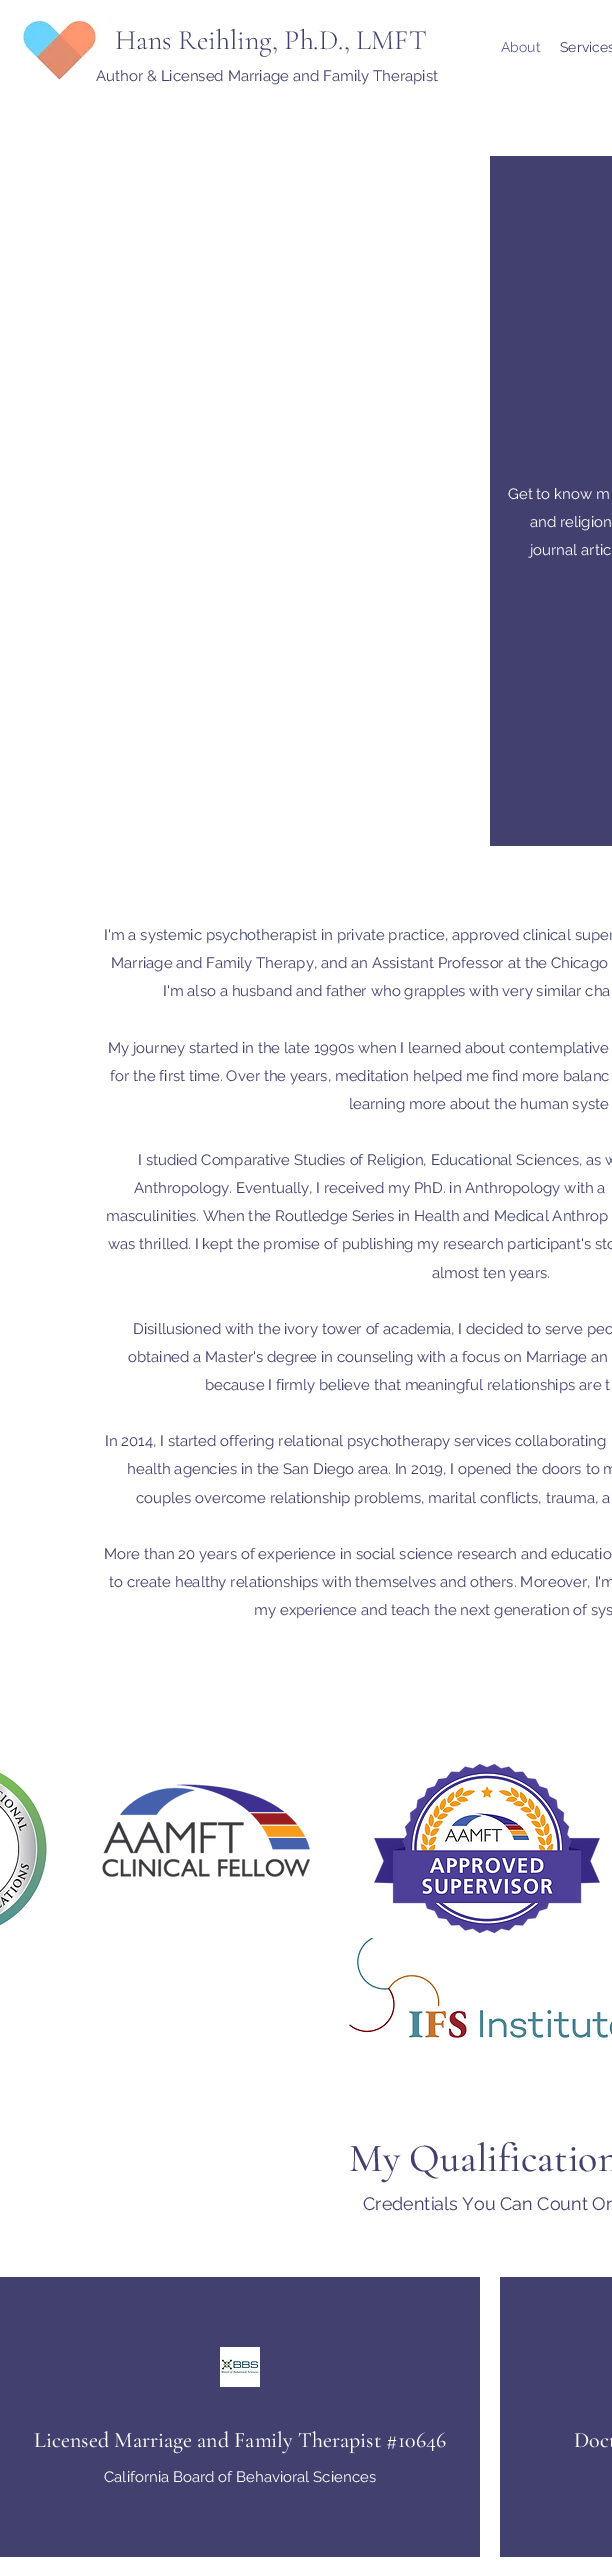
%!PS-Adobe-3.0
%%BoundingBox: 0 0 612 2572
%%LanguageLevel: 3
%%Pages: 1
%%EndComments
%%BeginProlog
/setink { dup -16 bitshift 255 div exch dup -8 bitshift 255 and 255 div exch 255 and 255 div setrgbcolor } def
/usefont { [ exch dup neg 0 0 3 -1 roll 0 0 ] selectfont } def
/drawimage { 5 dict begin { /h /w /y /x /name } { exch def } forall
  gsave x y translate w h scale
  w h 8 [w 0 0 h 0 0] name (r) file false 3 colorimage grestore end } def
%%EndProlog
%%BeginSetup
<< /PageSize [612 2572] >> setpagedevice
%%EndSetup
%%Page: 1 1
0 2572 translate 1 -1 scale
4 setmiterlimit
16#FFFFFF setink
0 0 612 2572 rectfill
(img1.raw) 20 15 80 65 drawimage
/CormorantGaramond-Light 28 usefont
16#42406F setink
115 49 moveto (Hans Reihling, Ph.D., LMFT) show
/Raleway-Regular 14 usefont
16#6360A3 setink
501 52 moveto (About) show
16#42406F setink
560 52 moveto (Services) show
/Raleway-Regular 15 usefont
96 81 moveto (Author & Licensed Marriage and Family Therapist) show
490 156 122 690 rectfill
16#FFFFFF setink
[
    [(Get to know m) 508 499]
    [(and religion) 530 527]
    [(journal artic) 530 555]
] { aload pop moveto show } forall
16#42406F setink
[
    [(I'm a systemic psychotherapist in private practice, approved clinical super) 104 940]
    [(Marriage and Family Therapy, and an Assistant Professor at the Chicago) 111 968]
    [(I'm also a husband and father who grapples with very similar cha) 163 996]
    [(My journey started in the late 1990s when I learned about contemplative) 108 1053]
    [(for the first time. Over the years, meditation helped me find more balanc) 110 1081]
    [(learning more about the human syste) 349 1109]
    [(I studied Comparative Studies of Religion, Educational Sciences, as w) 138 1165]
    [(Anthropology. Eventually, I received my PhD. in Anthropology with a) 134 1193]
    [(masculinities. When the Routledge Series in Health and Medical Anthrop) 106 1221]
    [(was thrilled. I kept the promise of publishing my research participant's sto) 108 1249]
    [(almost ten years.) 432 1278]
    [(Disillusioned with the ivory tower of academia, I decided to serve peo) 133 1334]
    [(obtained a Master's degree in counseling with a focus on Marriage an) 128 1362]
    [(because I firmly believe that meaningful relationships are t) 205 1390]
    [(In 2014, I started offering relational psychotherapy services collaborating) 105 1446]
    [(health agencies in the San Diego area. In 2019, I opened the doors to m) 127 1474]
    [(couples overcome relationship problems, marital conflicts, trauma, a) 136 1503]
    [(More than 20 years of experience in social science research and educatio) 104 1559]
    [(to create healthy relationships with themselves and others. Moreover, I'm) 109 1587]
    [(my experience and teach the next generation of sys) 254 1615]
] { aload pop moveto show } forall
(img2.raw) 0 1772 49 154 drawimage
(img3.raw) 102 1783 208 94 drawimage
(img4.raw) 374 1764 226 170 drawimage
(img5.raw) 349 1938 263 102 drawimage
/CormorantGaramond-Medium 40 usefont
349 2171 moveto (My Qualification) show
/Raleway-Regular 18 usefont
363 2210 moveto (Credentials You Can Count On) show
0 2277 480 280 rectfill
(img6.raw) 220 2347 40 40 drawimage
/CormorantGaramond-Medium 22 usefont
16#FFFFFF setink
34 2447 moveto (Licensed Marriage and Family Therapist #10646) show
/Raleway-Regular 15 usefont
104 2482 moveto (California Board of Behavioral Sciences) show
16#42406F setink
500 2277 112 280 rectfill
/CormorantGaramond-Medium 22 usefont
16#FFFFFF setink
574 2447 moveto (Doct) show
showpage
%%EOF
